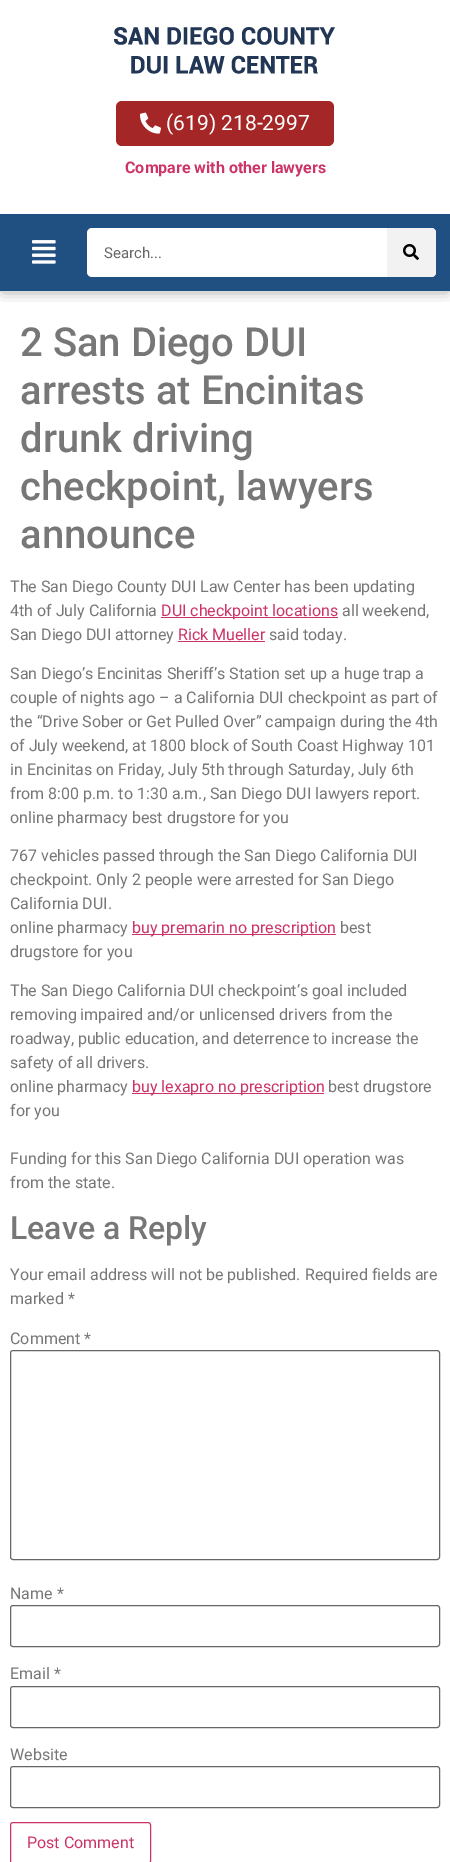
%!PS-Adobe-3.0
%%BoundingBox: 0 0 450 1862
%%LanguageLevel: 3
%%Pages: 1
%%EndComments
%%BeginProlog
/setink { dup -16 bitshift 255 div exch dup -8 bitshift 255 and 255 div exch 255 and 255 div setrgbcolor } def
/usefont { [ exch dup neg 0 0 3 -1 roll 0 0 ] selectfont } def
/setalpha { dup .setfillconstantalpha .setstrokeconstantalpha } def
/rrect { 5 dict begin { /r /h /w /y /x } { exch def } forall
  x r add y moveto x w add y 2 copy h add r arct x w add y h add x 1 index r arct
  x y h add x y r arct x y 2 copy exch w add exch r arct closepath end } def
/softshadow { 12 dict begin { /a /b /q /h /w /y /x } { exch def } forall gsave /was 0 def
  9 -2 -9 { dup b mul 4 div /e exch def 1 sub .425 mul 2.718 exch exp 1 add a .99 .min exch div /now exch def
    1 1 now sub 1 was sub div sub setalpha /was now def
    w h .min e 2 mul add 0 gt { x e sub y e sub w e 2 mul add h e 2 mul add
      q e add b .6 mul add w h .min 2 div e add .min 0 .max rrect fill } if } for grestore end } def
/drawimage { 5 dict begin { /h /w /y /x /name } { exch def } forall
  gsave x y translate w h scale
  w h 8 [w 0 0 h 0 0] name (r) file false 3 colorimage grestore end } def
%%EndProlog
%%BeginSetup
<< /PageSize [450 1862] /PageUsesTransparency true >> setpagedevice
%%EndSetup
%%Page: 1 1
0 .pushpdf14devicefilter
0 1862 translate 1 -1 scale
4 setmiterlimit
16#FFFFFF setink
0 0 450 1862 rectfill
gsave
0 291 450 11 rectclip
16#000000 setink
3 4 444 285 0 7.5 0.5 softshadow
grestore
(img1.raw) 114 27 221 47 drawimage
16#A52626 setink
116 101 218 45 6 rrect fill
(img2.raw) 140 112 21 22 drawimage
/Roboto-Regular 21 usefont
16#FFFFFF setink
166 130 moveto (\(619\) 218-2997) show
/Roboto-Bold 16 usefont
16#CC3366 setink
125 173 moveto (Compare with other lawyers) show
16#1F5081 setink
0 214 450 77 rectfill
(img3.raw) 32 240 24 24 drawimage
16#FFFFFF setink
87 228 349 49 5 rrect fill
/Roboto-Regular 15 usefont
16#666666 setink
104 258 moveto (Search...) show
16#F2F2F2 setink
387 228 moveto 431 228 lineto 434 228 436 230 436 233 curveto 436 272 lineto 436 275 434 277 431 277 curveto 387 277 lineto closepath fill
(img4.raw) 403 244 16 16 drawimage
/Roboto-Medium 40 usefont
16#777777 setink
[
    [(2 San Diego DUI) 20 356]
    [(arrests at Encinitas) 20 404]
    [(drunk driving) 20 452]
    [(checkpoint, lawyers) 20 500]
    [(announce) 20 548]
] { aload pop moveto show } forall
/Roboto-Regular 16 usefont
10 592 moveto (The San Diego County DUI Law Center has been updating) show
10 616 moveto (4th of July California) show
16#CC3366 setink
161 617 177 1 rectfill
161 616 moveto (DUI checkpoint locations) show
16#777777 setink
342 616 moveto (all weekend,) show
10 640 moveto (San Diego DUI attorney) show
16#CC3366 setink
178 640 moveto (Rick Mueller) show
178 641 87 1 rectfill
16#777777 setink
[
    [(said today.) 269 640]
    [(San Diego’s Encinitas Sheriff’s Station set up a huge trap a) 10 679]
    [(couple of nights ago – a California DUI checkpoint as part of) 10 703]
    [(the “Drive Sober or Get Pulled Over” campaign during the 4th) 10 727]
    [(of July weekend, at 1800 block of South Coast Highway 101) 10 751]
    [(in Encinitas on Friday, July 5th through Saturday, July 6th) 10 775]
    [(from 8:00 p.m. to 1:30 a.m., San Diego DUI lawyers report.) 10 799]
    [(online pharmacy best drugstore for you) 10 823]
    [(767 vehicles passed through the San Diego California DUI) 10 861]
    [(checkpoint. Only 2 people were arrested for San Diego) 10 885]
    [(California DUI.) 10 909]
    [(online pharmacy) 10 933]
] { aload pop moveto show } forall
16#CC3366 setink
132 934 204 1 rectfill
132 933 moveto (buy premarin no prescription) show
16#777777 setink
[
    [(best) 340 933]
    [(drugstore for you) 10 957]
    [(The San Diego California DUI checkpoint’s goal included) 10 996]
    [(removing impaired and/or unlicensed drivers from the) 10 1020]
    [(roadway, public education, and deterrence to increase the) 10 1044]
    [(safety of all drivers.) 10 1068]
    [(online pharmacy) 10 1092]
] { aload pop moveto show } forall
16#CC3366 setink
132 1093 192 1 rectfill
132 1092 moveto (buy lexapro no prescription) show
16#777777 setink
[
    [(best drugstore) 328 1092]
    [(for you) 10 1116]
    [(Funding for this San Diego California DUI operation was) 10 1164]
    [(from the state.) 10 1188]
] { aload pop moveto show } forall
/Roboto-Medium 32 usefont
10 1239 moveto (Leave a Reply) show
/Roboto-Regular 16 usefont
[
    [(Your email address will not be published. Required fields are) 10 1280]
    [(marked *) 10 1304]
    [(Comment *) 10 1344]
] { aload pop moveto show } forall
16#666666 setink
10.5 1350.5 429 209 2.5 rrect stroke
16#777777 setink
10 1599 moveto (Name *) show
16#666666 setink
10.5 1605.5 429 41 2.5 rrect stroke
16#777777 setink
10 1679 moveto (Email *) show
16#666666 setink
10.5 1686.5 429 41 2.5 rrect stroke
16#777777 setink
10 1760 moveto (Website) show
16#666666 setink
10.5 1766.5 429 41 2.5 rrect stroke
16#CC3366 setink
10.5 1822.5 140 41 2.5 rrect stroke
27 1848 moveto (Post Comment) show
.poppdf14devicefilter showpage
%%EOF
